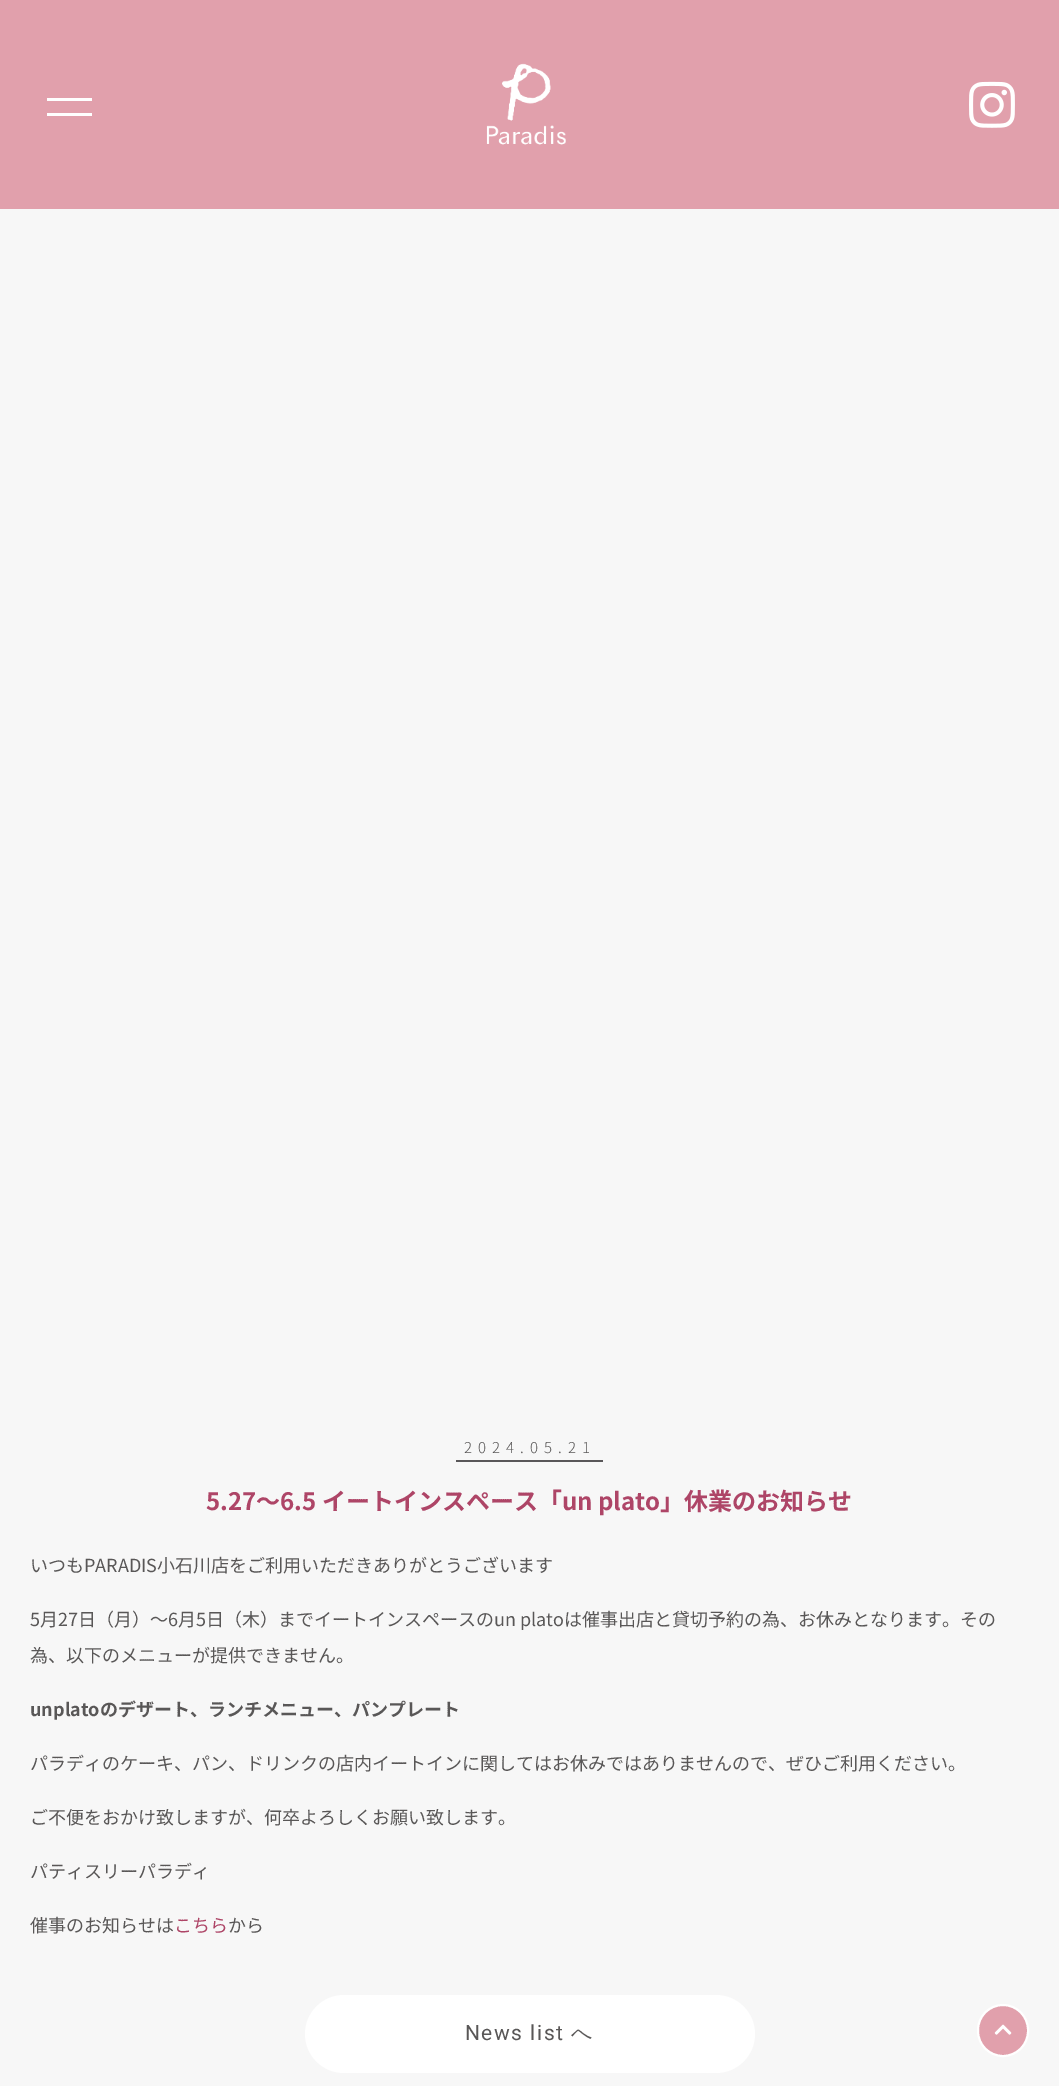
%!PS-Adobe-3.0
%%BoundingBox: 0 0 1059 2086
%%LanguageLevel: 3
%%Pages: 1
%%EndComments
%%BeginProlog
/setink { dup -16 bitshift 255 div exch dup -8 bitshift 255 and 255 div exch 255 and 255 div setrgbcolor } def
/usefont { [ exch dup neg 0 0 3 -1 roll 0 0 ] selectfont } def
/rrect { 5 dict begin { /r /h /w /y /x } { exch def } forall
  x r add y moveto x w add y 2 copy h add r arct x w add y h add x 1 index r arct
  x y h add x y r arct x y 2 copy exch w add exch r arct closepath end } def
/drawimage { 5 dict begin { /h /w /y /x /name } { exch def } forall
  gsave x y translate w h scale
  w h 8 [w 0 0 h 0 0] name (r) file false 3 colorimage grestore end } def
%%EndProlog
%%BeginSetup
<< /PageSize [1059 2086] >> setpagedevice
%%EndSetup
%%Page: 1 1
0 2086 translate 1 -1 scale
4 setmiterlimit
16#F7F7F7 setink
0 0 1059 2086 rectfill
[
    [0 0 1059 209 16#E1A0AC]
    [47 98 45 3 16#FFFFFF]
    [47 113 45 3 16#FFFFFF]
] { aload pop setink rectfill } forall
(img1.raw) 486 63 80 82 drawimage
(img2.raw) 969 81 46 47 drawimage
16#595759 setink
456 1460 147 2 rectfill
/NotoSansJP-Light 15 usefont
16#595757 setink
464 1453 moveto 6 0 (2024.05.21) ashow
/NotoSansJP-Bold 24 usefont
16#AE4567 setink
206 1510 moveto (5.27〜6.5 イートインスペース「un plato」休業のお知らせ) show
/NotoSansJP-Regular 18 usefont
16#595757 setink
[
    [(いつもPARADIS小石川店をご利用いただきありがとうございます) 30 1572]
    [(5月27日（月）〜6月5日（木）までイートインスペースのun platoは催事出店と貸切予約の為、お休みとなります。その) 30 1626]
    [(為、以下のメニューが提供できません。) 30 1662]
] { aload pop moveto show } forall
/NotoSansJP-Bold 18 usefont
30 1716 moveto (unplatoのデザート、ランチメニュー、パンプレート) show
/NotoSansJP-Regular 18 usefont
[
    [(パラディのケーキ、パン、ドリンクの店内イートインに関してはお休みではありませんので、ぜひご利用ください。) 30 1770]
    [(ご不便をおかけ致しますが、何卒よろしくお願い致します。) 30 1824]
    [(パティスリーパラディ) 30 1878]
    [(催事のお知らせは) 30 1932]
] { aload pop moveto show } forall
16#AE4567 setink
174 1932 moveto (こちら) show
16#595757 setink
228 1932 moveto (から) show
16#FFFFFF setink
305 1995 450 78 39 rrect fill
/Roboto-Regular 21 usefont
16#595757 setink
465 2040 moveto 1.5 0 (News list) ashow
/WenQuanYiZenHei-Medium 21 usefont
571 2040 moveto 1.5 0 (へ) ashow
16#E1A0AC setink
978 2005 50 51 25 rrect gsave fill grestore
16#FFFFFF setink
2 setlinewidth
stroke
(img3.raw) 994 2024 18 11 drawimage
showpage
%%EOF
